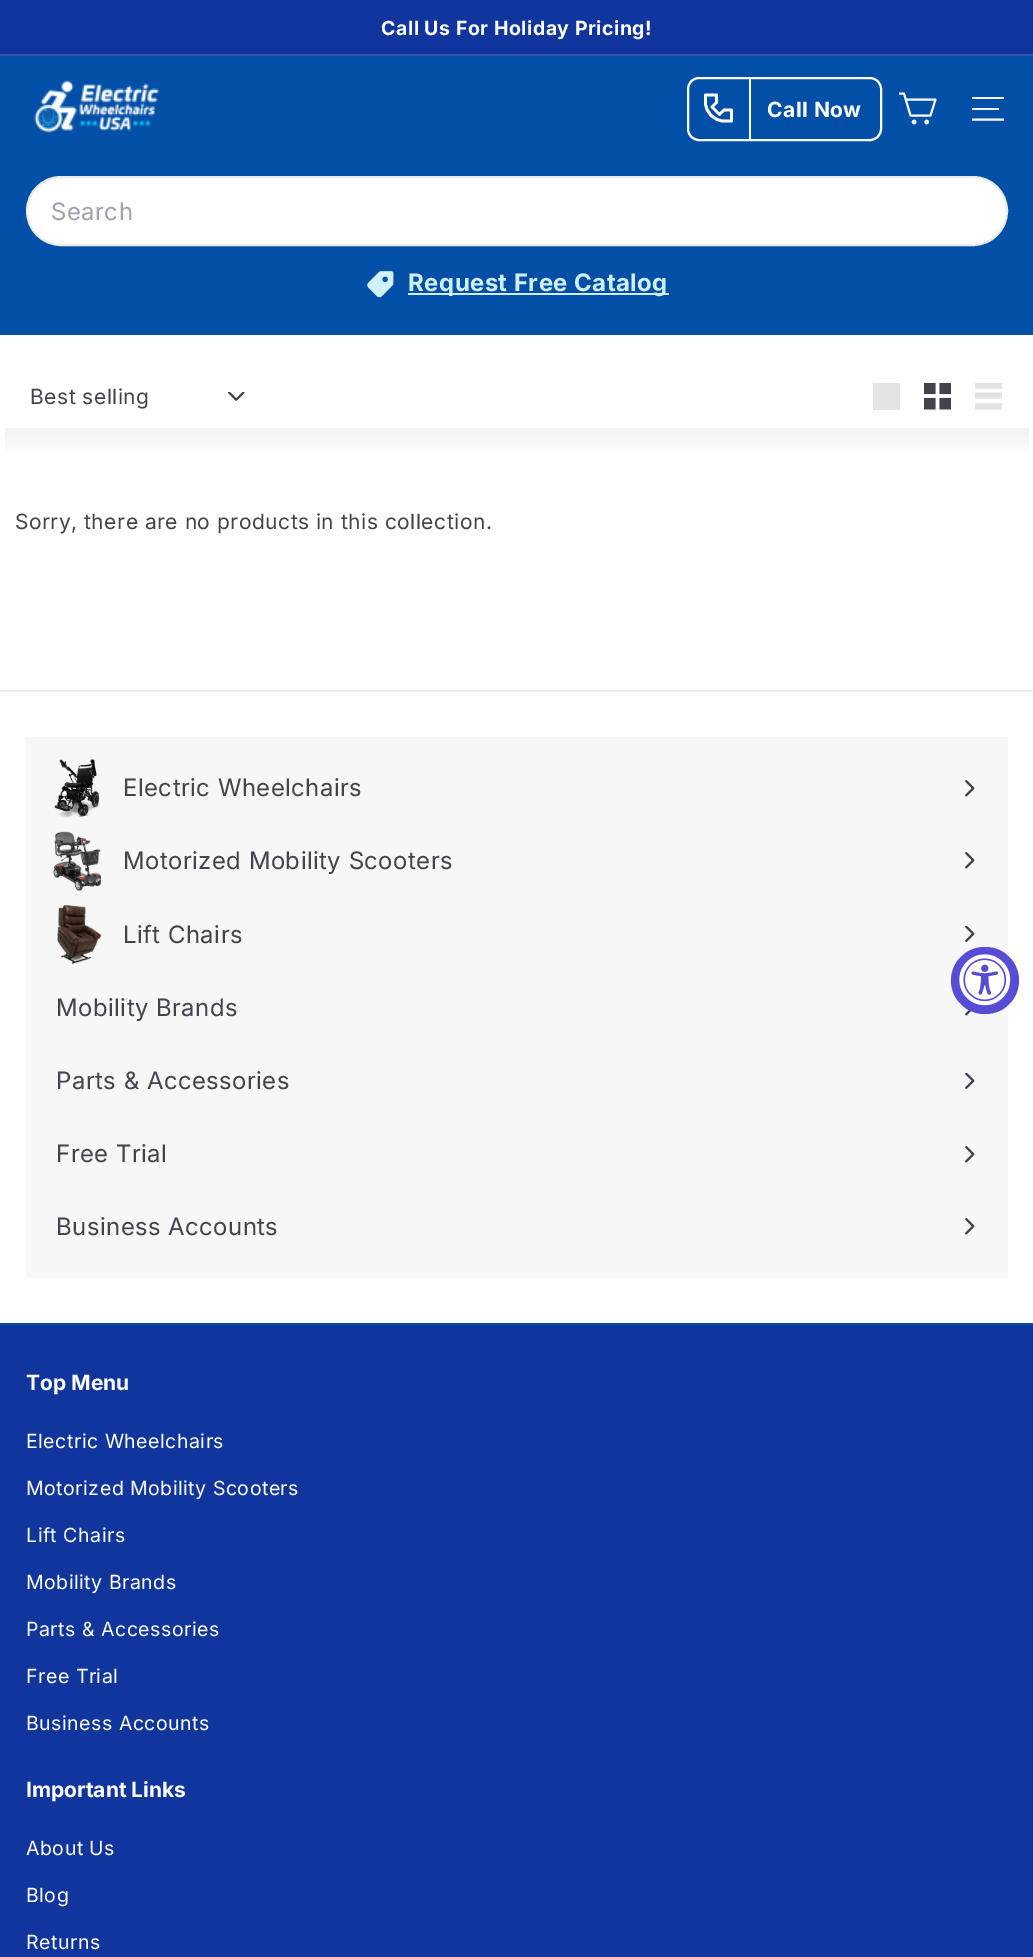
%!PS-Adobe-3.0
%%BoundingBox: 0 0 1033 1957
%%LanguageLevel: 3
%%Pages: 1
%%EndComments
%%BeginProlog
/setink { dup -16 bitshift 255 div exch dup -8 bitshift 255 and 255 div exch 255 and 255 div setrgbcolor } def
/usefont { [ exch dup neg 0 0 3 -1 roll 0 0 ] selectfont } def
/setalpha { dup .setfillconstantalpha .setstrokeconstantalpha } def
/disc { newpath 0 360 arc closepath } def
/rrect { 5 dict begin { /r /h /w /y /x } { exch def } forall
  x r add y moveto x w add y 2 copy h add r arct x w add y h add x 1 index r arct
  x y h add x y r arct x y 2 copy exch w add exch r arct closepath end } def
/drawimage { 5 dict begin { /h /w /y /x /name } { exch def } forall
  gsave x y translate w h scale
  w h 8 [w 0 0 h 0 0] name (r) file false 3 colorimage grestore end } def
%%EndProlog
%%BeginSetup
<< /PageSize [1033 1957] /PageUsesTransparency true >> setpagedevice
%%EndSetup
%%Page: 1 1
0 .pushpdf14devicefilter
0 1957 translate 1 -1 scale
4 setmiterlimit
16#FFFFFF setink
0 0 1033 1957 rectfill
16#10359C setink
0 0 1033 54 rectfill
/Inter-Bold 19.5 usefont
16#FFFFFF setink
381 35 moveto 0.5 0 (Call Us For Holiday Pricing!) ashow
16#3453AB setink
0 54 1033 2 rectfill
16#024FA7 setink
0 56 1033 279 rectfill
(img1.raw) 34 80 126 53 drawimage
16#FFFFFF setink
2 setlinewidth
688 78 193 62 11 rrect stroke
2.8 setlinewidth
1 setlinecap
1 setlinejoin
705.5 102.5 moveto 705.5 95 lineto 716.5 95 lineto 716.5 102.5 lineto 712 107 lineto 719.5 114.5 lineto 724 110 lineto 731.5 110 lineto 731.5 121 lineto 724 121 lineto 714 121 705.5 112.5 705.5 102.5 curveto closepath stroke
749 78 2 62 rectfill
/Inter-Bold 21 usefont
767 117 moveto 0.5 0 (Call Now) ashow
1.9 setlinewidth
0 setlinecap
906 99.5 moveto 935.5 99.5 lineto 930.5 115.5 lineto 910.5 115.5 lineto 904 93.5 lineto 899 93.5 lineto stroke
0 setlinejoin
914.1 122 1.3 disc stroke
926.7 122 1.3 disc stroke
16#F2F6FB setink
972 97 32 2 rectfill
972 108 27 2 rectfill
16#FFFFFF setink
1 setlinejoin
972 119.5 moveto 1004 119.5 lineto stroke
27 177 980 68 34 rrect gsave fill grestore
16#EFEBEB setink
2 setlinewidth
0 setlinejoin
stroke
/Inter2-Regular 24 usefont
16#9CA3AF setink
51 220 moveto 0.5 0 (Search) ashow
(img2.raw) 367 271 27 27 drawimage
16#D1F0F6 setink
408 293 261 2 rectfill
/Inter2-Bold 24 usefont
408 291 moveto 0.5 0 (Request Free Catalog) ashow
(img3.raw) 228 392 17 9 drawimage
/Inter-Regular 21 usefont
16#42434D setink
30 404 moveto 0.5 0 (Best selling) ashow
16#E3E3E4 setink
873 383 27 27 rectfill
(img4.raw) 924 383 27 27 drawimage
(img5.raw) 975 383 27 27 drawimage
gsave 5 428 moveto 1029 428 lineto 1029 452 lineto 5 452 lineto closepath clip newpath
<< /ShadingType 2 /ColorSpace /DeviceRGB /Coords [517 427 517 458] /Extend [true true] /Function << /FunctionType 2 /Domain [0 1] /C0 [0.949 0.949 0.949] /C1 [1 1 1] /N 1 >> >> shfill grestore
16#42434D setink
15 529 moveto 0.5 0 (Sorry, there are no products in this collection.) ashow
16#EFEBEB setink
0 690 1033 2 rectfill
(img6.raw) 54 759 46 59 drawimage
(img7.raw) 965 780 10 17 drawimage
(img8.raw) 53 831 49 60 drawimage
(img7.raw) 965 852 10 17 drawimage
(img9.raw) 57 905 45 60 drawimage
(img10.raw) 965 926 10 16 drawimage
(img11.raw) 965 1010 6 6 drawimage
(img10.raw) 965 1073 10 16 drawimage
(img7.raw) 965 1146 10 17 drawimage
(img7.raw) 965 1218 10 17 drawimage
0.03 setalpha
16#000000 setink
26 737 982 541 rectfill
/Inter2-Regular 24 usefont
1 setalpha
16#42434D setink
123 796 moveto 0.5 0 (Electric Wheelchairs) ashow
123 869 moveto 0.5 0 (Motorized Mobility Scooters) ashow
123 943 moveto 0.5 0 (Lift Chairs) ashow
56 1016 moveto 0.5 0 (Mobility Brands) ashow
56 1089 moveto 0.5 0 (Parts & Accessories) ashow
56 1162 moveto 0.5 0 (Free Trial) ashow
56 1235 moveto 0.5 0 (Business Accounts) ashow
16#10359C setink
0 1325 1033 632 rectfill
16#024FA7 setink
0 1323 1033 2 rectfill
/Inter-Bold 21 usefont
16#FFFFFF setink
26 1390 moveto (Top Menu) show
/Inter-Regular 19.5 usefont
26 1448 moveto 0.5 0 (Electric Wheelchairs) ashow
26 1495 moveto 0.5 0 (Motorized Mobility Scooters) ashow
26 1542 moveto 0.5 0 (Lift Chairs) ashow
26 1589 moveto 0.5 0 (Mobility Brands) ashow
26 1636 moveto 0.5 0 (Parts & Accessories) ashow
26 1683 moveto 0.5 0 (Free Trial) ashow
26 1730 moveto 0.5 0 (Business Accounts) ashow
/Inter-Bold 21 usefont
26 1797 moveto (Important Links) show
/Inter-Regular 19.5 usefont
26 1855 moveto 0.5 0 (About Us) ashow
26 1902 moveto 0.5 0 (Blog) ashow
26 1949 moveto 0.5 0 (Returns) ashow
16#574CD5 setink
951 947 68 67 33.5 rrect fill
(img12.raw) 959 954 52 52 drawimage
.poppdf14devicefilter showpage
%%EOF
